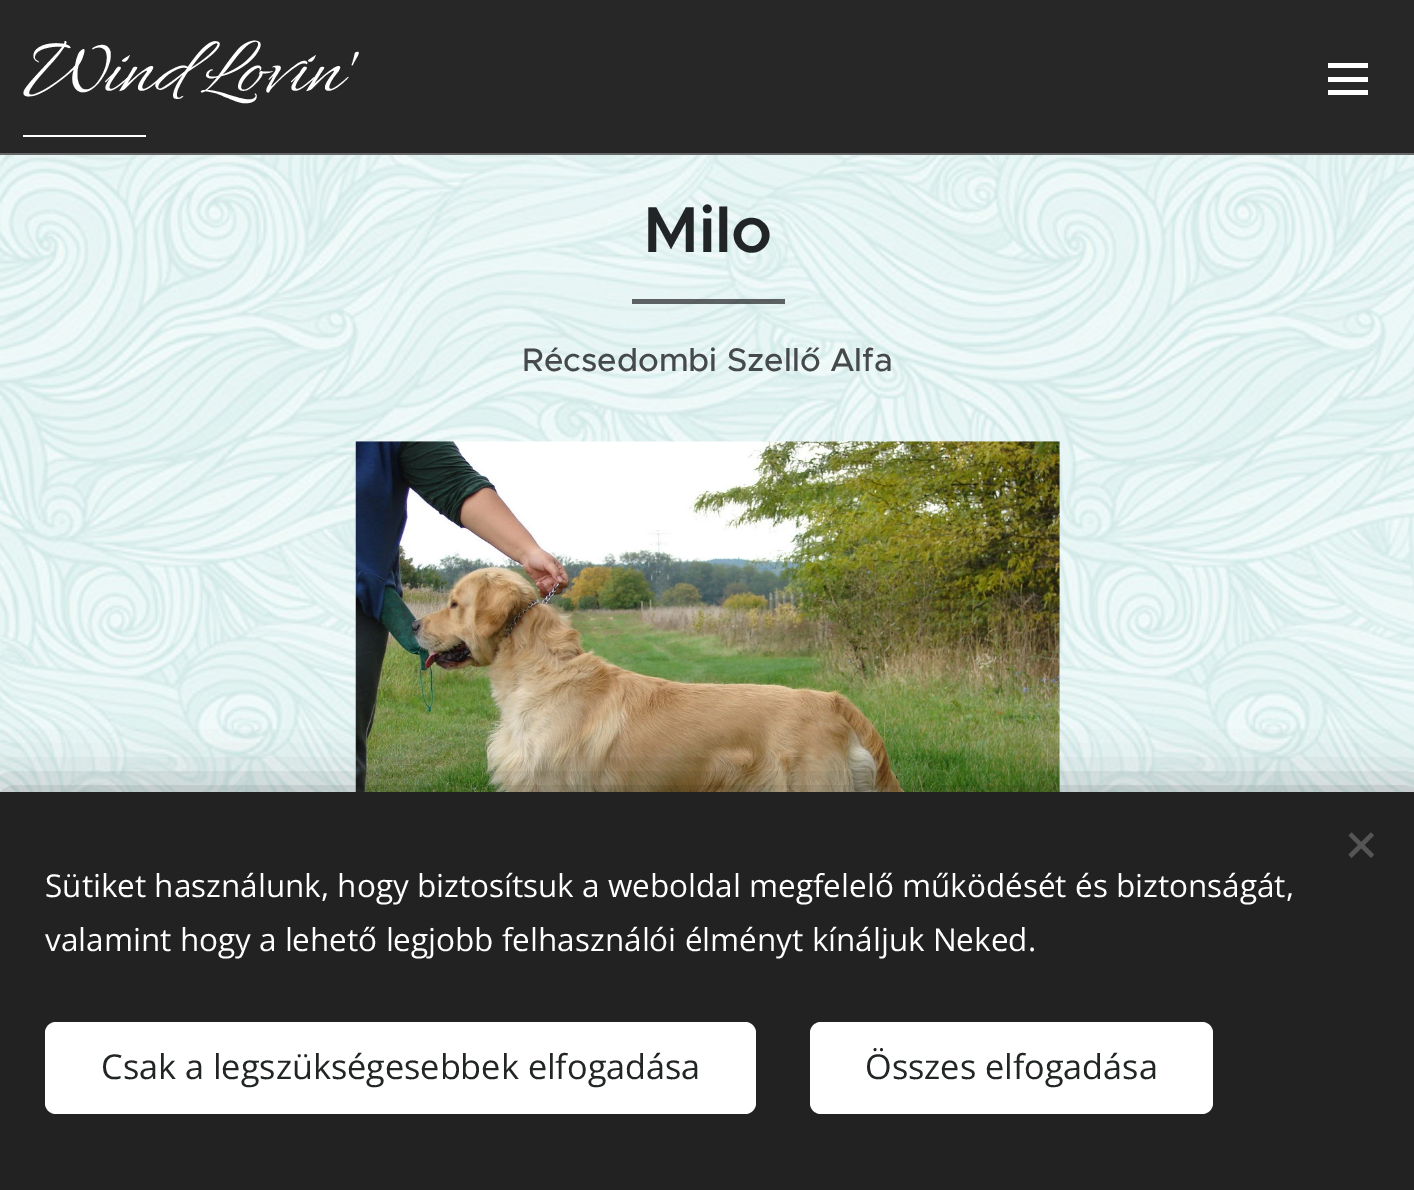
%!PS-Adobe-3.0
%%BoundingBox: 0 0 1414 1190
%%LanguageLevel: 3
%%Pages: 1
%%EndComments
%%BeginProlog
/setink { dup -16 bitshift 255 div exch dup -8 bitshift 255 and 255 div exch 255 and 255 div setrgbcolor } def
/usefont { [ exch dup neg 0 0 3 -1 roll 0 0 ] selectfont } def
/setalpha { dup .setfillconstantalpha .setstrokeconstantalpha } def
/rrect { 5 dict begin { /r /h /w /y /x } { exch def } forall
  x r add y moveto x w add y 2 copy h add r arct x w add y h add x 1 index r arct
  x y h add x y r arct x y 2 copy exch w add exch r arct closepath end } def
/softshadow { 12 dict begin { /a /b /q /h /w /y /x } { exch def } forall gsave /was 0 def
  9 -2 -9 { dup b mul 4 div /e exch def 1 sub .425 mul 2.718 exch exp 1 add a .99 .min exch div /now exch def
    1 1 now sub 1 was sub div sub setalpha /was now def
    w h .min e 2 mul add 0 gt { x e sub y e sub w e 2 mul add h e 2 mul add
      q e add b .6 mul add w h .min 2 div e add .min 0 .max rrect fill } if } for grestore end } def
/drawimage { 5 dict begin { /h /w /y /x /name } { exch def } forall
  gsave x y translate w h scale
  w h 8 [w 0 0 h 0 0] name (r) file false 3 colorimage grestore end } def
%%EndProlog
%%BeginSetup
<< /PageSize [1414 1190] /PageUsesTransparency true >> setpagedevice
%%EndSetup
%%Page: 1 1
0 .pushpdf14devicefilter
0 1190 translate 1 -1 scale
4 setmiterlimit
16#FFFFFF setink
0 0 1414 1190 rectfill
16#272727 setink
0 0 1414 153 rectfill
16#686868 setink
0 153 1414 2 rectfill
/Allura-Italic 81 usefont
16#FFFFFF setink
23 90 moveto (Wind Lovin') show
[
    [23 135 123 2 16#FFFFFF]
    [1328 77 40 5 16#FFFFFF]
    [1328 63 40 5 16#FFFFFF]
    [1328 90 40 5 16#FFFFFF]
] { aload pop setink rectfill } forall
(img1.raw) 0 155 1414 637 drawimage
/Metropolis-SemiBold 65 usefont
16#222525 setink
643 252 moveto -0.5 0 (Milo) ashow
0.6 setalpha
16#000000 setink
632 299 153 5 rectfill
/Metropolis-Medium 32.8 usefont
1 setalpha
16#454949 setink
522 371 moveto (Récsedombi Szellő Alfa) show
(img2.raw) 355 441 705 351 drawimage
16#000000 setink
0 792 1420 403 0 28 0.33 softshadow
16#222222 setink
0 792 1414 398 rectfill
16#555555 setink
1348.5 854.5 moveto 1371 832.5 lineto 1374 835.5 lineto 1351.5 858 lineto closepath fill
1351.5 832.5 moveto 1374 854.5 lineto 1371 858 lineto 1348.5 835.5 lineto closepath fill
/OpenSans-Regular 31.5 usefont
16#FFFFFF setink
45 897 moveto (Sütiket használunk, hogy biztosítsuk a weboldal megfelelő működését és biztonságát,) show
45 951 moveto (valamint hogy a lehető legjobb felhasználói élményt kínáljuk Neked.) show
45 1022 711 92 11 rrect fill
/OpenSans-Regular 34.25 usefont
16#222525 setink
101 1079 moveto (Csak a legszükségesebbek elfogadása) show
16#FFFFFF setink
810 1022 403 92 11 rrect fill
16#222525 setink
865 1079 moveto (Összes elfogadása) show
.poppdf14devicefilter showpage
%%EOF
